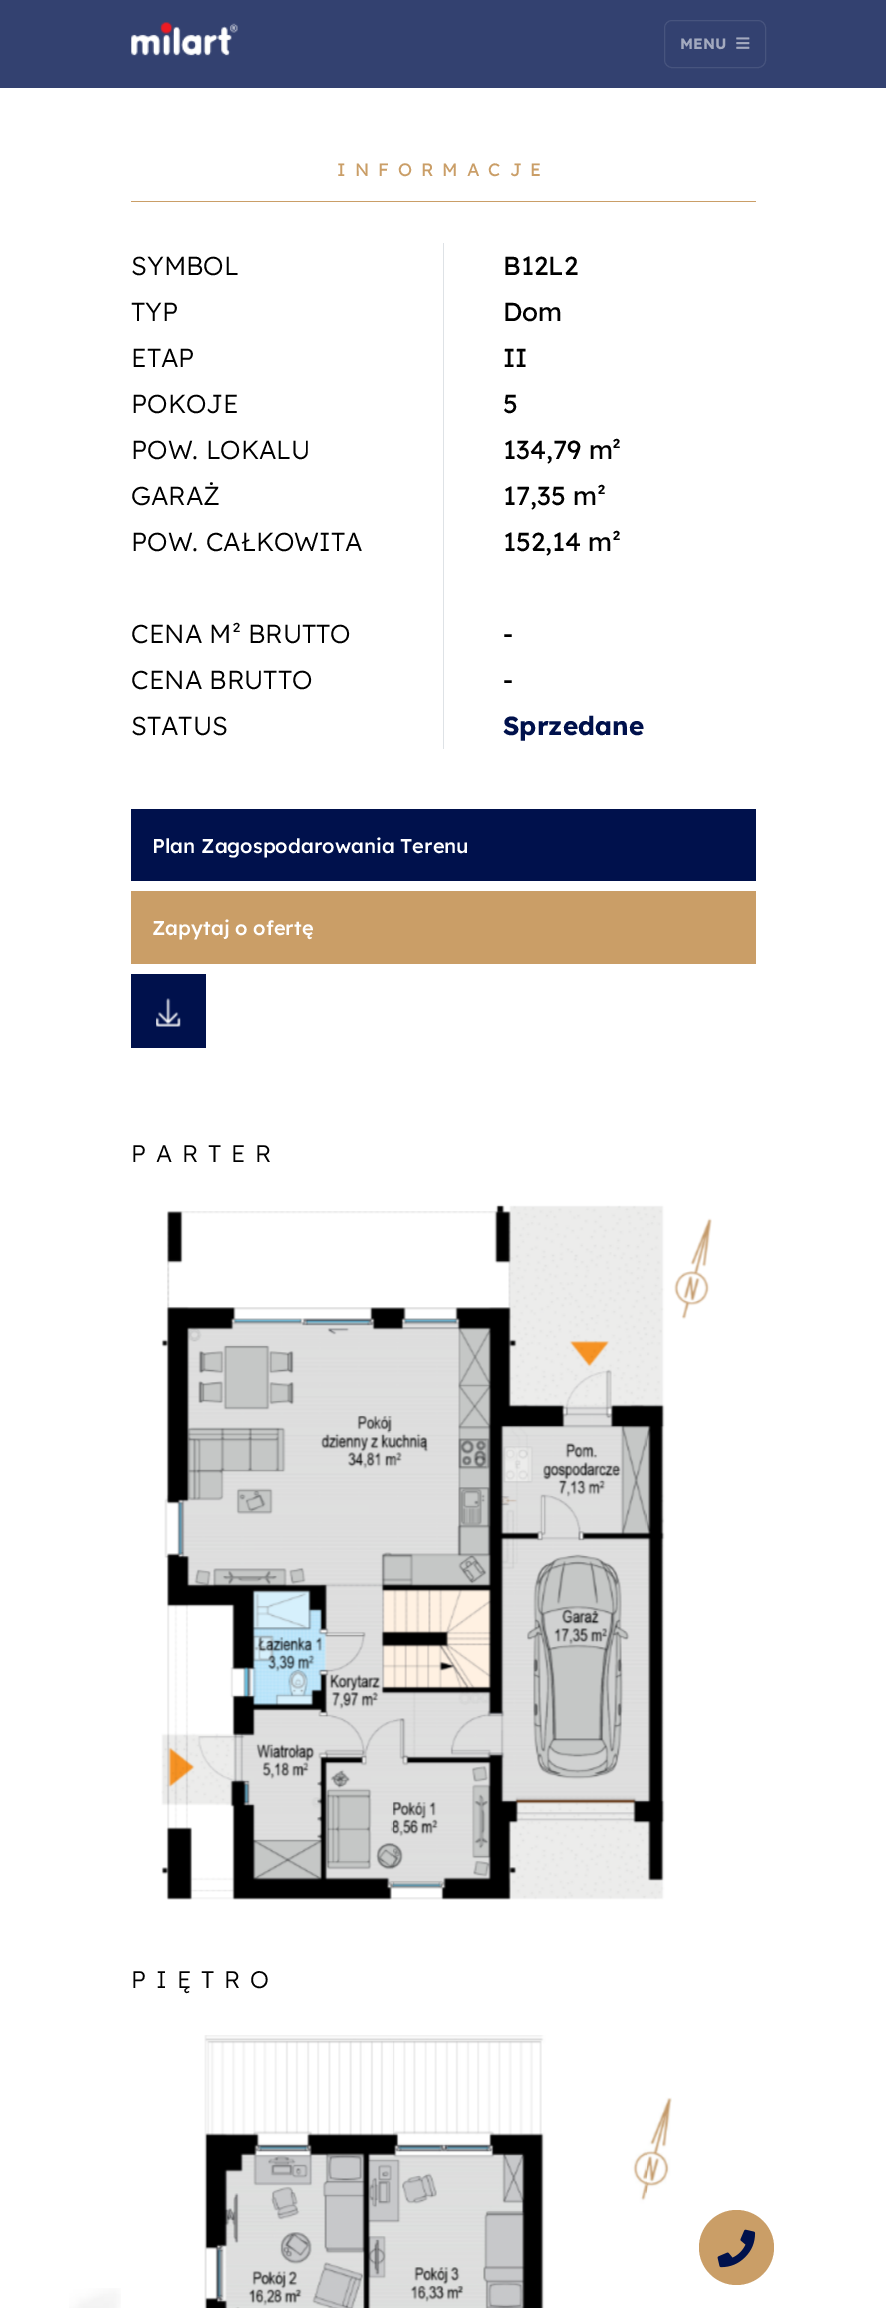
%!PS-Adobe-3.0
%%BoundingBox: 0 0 886 2308
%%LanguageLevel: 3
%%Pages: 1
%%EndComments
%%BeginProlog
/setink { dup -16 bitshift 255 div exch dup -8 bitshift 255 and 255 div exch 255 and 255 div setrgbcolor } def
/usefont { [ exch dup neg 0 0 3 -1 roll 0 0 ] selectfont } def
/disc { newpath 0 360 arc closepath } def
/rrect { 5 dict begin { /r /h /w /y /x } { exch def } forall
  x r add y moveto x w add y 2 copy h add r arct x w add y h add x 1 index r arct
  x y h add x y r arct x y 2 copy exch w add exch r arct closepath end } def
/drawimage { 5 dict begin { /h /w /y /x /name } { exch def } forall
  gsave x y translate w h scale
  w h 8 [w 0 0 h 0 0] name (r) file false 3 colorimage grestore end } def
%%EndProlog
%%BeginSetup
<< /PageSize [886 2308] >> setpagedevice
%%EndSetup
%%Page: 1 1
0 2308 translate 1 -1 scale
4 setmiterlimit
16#FFFFFF setink
0 0 886 2308 rectfill
16#334170 setink
0 0 886 88 rectfill
(img1.raw) 131 22 107 34 drawimage
16#47547E setink
664.5 20.5 101 47 7.5 rrect stroke
/Lexend-Bold 15 usefont
16#A3AABF setink
680 49 moveto (MENU) show
(img2.raw) 736 37 14 12 drawimage
(img3.raw) 69 2288 52 20 drawimage
/Lexend-Regular 18 usefont
16#CA9E67 setink
337 176 moveto 9 0 (INFORMACJE) ashow
131 201 625 1 rectfill
16#DEE2E6 setink
443 243 1 506 rectfill
/Lexend-Light 26 usefont
16#000000 setink
[
    [(SYMBOL) 131 275]
    [(TYP) 131 321]
    [(ETAP) 131 367]
    [(POKOJE) 131 413]
    [(POW. LOKALU) 131 459]
    [(GARAŻ) 131 505]
    [(POW. CAŁKOWITA) 131 551]
    [(CENA M² BRUTTO) 131 643]
    [(CENA BRUTTO) 131 689]
    [(STATUS) 131 735]
] { aload pop moveto show } forall
/Lexend-Regular 26 usefont
[
    [(B12L2) 503 275]
    [(Dom) 503 321]
    [(II) 503 367]
    [(5) 503 413]
    [(134,79 m²) 503 459]
    [(17,35 m²) 503 505]
    [(152,14 m²) 503 551]
    [(-) 503 643]
    [(-) 503 689]
] { aload pop moveto show } forall
/Lexend-Bold 26 usefont
16#00114C setink
503 735 moveto (Sprzedane) show
131 809 625 72 rectfill
/Lexend-Medium 20 usefont
16#FFFFFF setink
152 853 moveto (Plan Zagospodarowania Terenu) show
16#CA9E67 setink
131 891 625 73 rectfill
16#FFFFFF setink
152 935 moveto (Zapytaj o ofertę) show
16#00114C setink
131 974 75 74 rectfill
(img4.raw) 156 998 25 29 drawimage
/Lexend-Light 24 usefont
16#000000 setink
131 1162 moveto 10 0 (PARTER) ashow
(img5.raw) 161 1204 551 696 drawimage
131 1988 moveto 10 0 (PIĘTRO) ashow
(img6.raw) 204 2035 468 273 drawimage
16#CA9E67 setink
736.5 2247.5 37.5 disc fill
(img7.raw) 717 2229 39 39 drawimage
showpage
%%EOF
